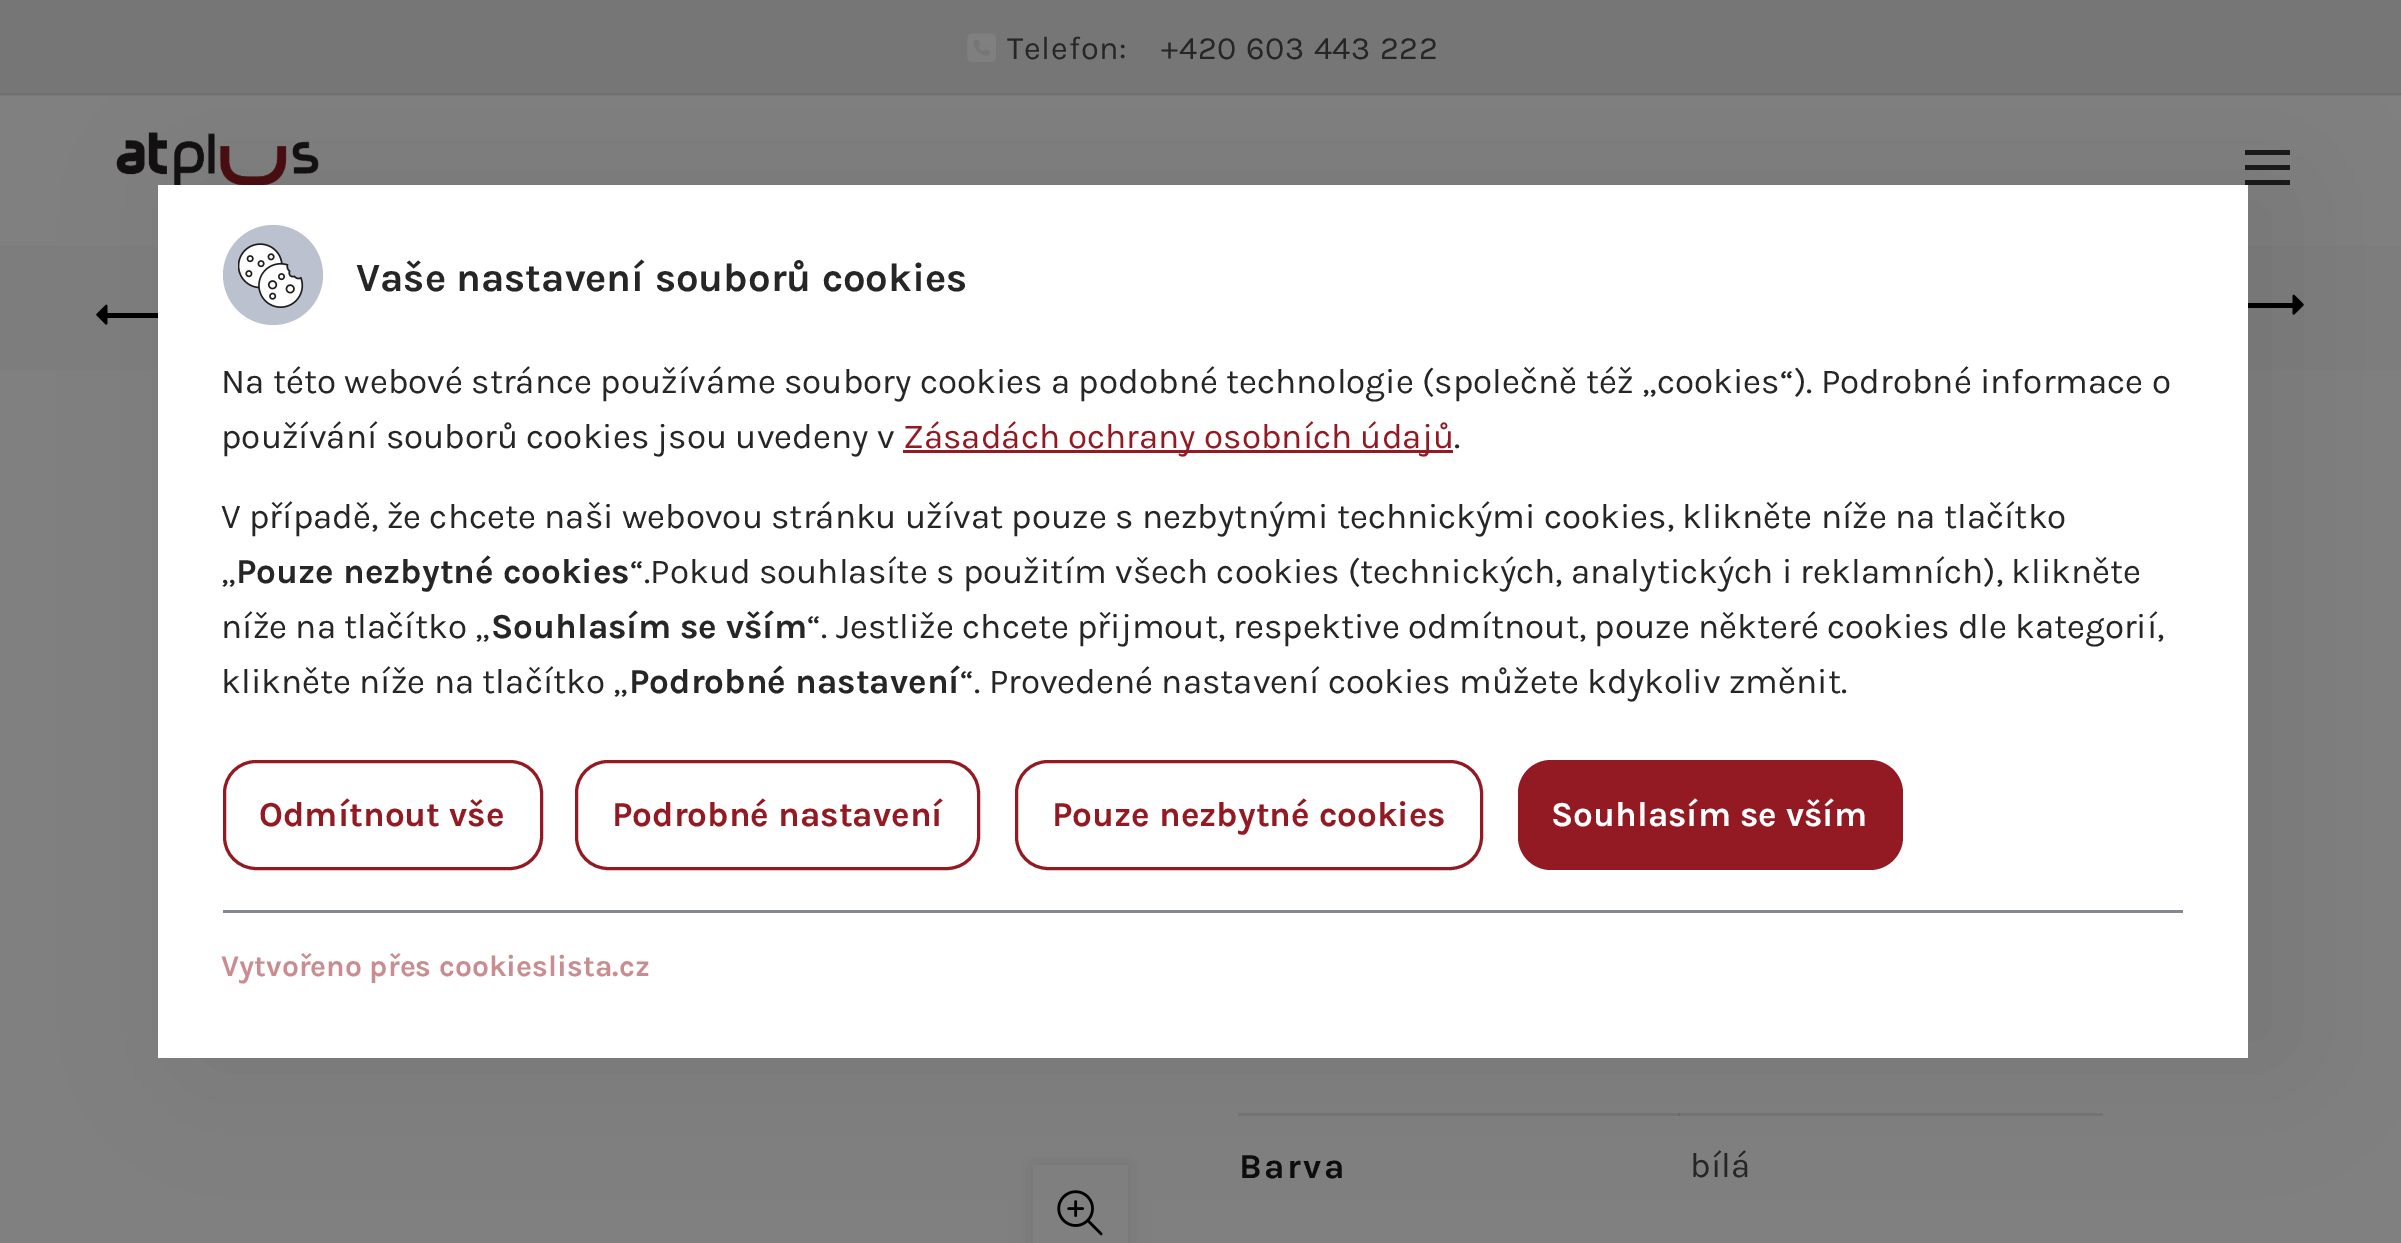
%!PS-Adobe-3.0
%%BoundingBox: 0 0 2401 1243
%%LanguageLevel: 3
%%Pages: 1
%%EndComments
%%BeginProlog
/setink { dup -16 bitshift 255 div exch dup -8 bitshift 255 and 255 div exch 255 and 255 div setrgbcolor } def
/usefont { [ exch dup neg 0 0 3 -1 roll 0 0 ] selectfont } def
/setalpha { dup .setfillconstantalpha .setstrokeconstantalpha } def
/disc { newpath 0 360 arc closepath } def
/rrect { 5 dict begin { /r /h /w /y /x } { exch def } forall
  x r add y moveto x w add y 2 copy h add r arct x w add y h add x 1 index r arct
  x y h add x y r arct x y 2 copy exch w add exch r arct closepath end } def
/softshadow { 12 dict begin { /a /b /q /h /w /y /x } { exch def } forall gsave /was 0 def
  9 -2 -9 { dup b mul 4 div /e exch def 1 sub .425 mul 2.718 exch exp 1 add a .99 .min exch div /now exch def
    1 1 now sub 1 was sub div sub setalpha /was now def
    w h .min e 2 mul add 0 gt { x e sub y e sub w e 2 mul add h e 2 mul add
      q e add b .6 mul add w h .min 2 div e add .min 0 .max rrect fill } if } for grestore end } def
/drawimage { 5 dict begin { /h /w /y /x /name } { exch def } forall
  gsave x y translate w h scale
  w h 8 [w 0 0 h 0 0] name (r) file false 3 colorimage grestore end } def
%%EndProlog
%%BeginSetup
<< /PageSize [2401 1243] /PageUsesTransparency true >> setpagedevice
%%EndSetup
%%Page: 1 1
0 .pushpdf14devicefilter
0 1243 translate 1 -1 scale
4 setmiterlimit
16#808080 setink
0 0 2401 1243 rectfill
[
    [0 95 2401 1 16#797979]
    [1238 1113 865 3 16#747474]
    [0 0 2401 93 16#767676]
    [0 93 2401 2 16#707070]
] { aload pop setink rectfill } forall
(img1.raw) 967 33 29 29 drawimage
/Karla-Regular 32.5 usefont
16#262626 setink
1007 59 moveto 0.75 0 (Telefon:) ashow
1161 59 moveto 0.75 0 (+420 603 443 222) ashow
(img2.raw) 116 132 203 53 drawimage
[
    [2245 165 45 5 16#1A1A1A]
    [2245 150 45 5 16#1A1A1A]
    [2245 180 45 5 16#1A1A1A]
    [0 245 2401 125 16#7D7D7D]
    [105 313 53 5 16#000000]
] { aload pop setink rectfill } forall
(img3.raw) 96 304 12 21 drawimage
2248 303 47 5 rectfill
(img4.raw) 2292 294 12 21 drawimage
1033 1165 95 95 0 11 0.1 softshadow
16#808080 setink
1033 1165 95 78 rectfill
(img5.raw) 1057 1190 46 46 drawimage
16#6B6B6B setink
1678 1113 2 3 rectfill
/Karla-Bold 35 usefont
16#0E0D0D setink
1239 1178 moveto 2.5 0 (Barva) ashow
/Karla-Regular 35 usefont
16#262626 setink
1690 1177 moveto (bílá) show
16#000000 setink
198 185 2090 873 0 62.5 0.09 softshadow
16#FFFFFF setink
158 185 2090 873 rectfill
16#BBC1CE setink
273 275 50 disc fill
(img6.raw) 238 243 66 65 drawimage
/Karla-Bold 40 usefont
16#262626 setink
356 291 moveto (Vaše nastavení souborů cookies) show
/Karla-Regular 35 usefont
221 393 moveto (Na této webové stránce používáme soubory cookies a podobné technologie \(společně též „cookies“\). Podrobné informace o) show
221 448 moveto (používání souborů cookies jsou uvedeny v) show
16#931A22 setink
903 450 550 3 rectfill
903 448 moveto (Zásadách ochrany osobních údajů) show
16#262626 setink
[
    [(.) 1454 448]
    [(V případě, že chcete naši webovou stránku užívat pouze s nezbytnými technickými cookies, klikněte níže na tlačítko) 221 528]
    [(„) 221 583]
] { aload pop moveto show } forall
/Karla-Bold 35 usefont
236 583 moveto (Pouze nezbytné cookies) show
/Karla-Regular 35 usefont
630 583 moveto (“.Pokud souhlasíte s použitím všech cookies \(technických, analytických i reklamních\), klikněte) show
221 638 moveto (níže na tlačítko „) show
/Karla-Bold 35 usefont
491 638 moveto (Souhlasím se vším) show
/Karla-Regular 35 usefont
807 638 moveto (“. Jestliže chcete přijmout, respektive odmítnout, pouze některé cookies dle kategorií,) show
221 693 moveto (klikněte níže na tlačítko „) show
/Karla-Bold 35 usefont
629 693 moveto (Podrobné nastavení) show
/Karla-Regular 35 usefont
960 693 moveto (“. Provedené nastavení cookies můžete kdykoliv změnit.) show
16#931A22 setink
3 setlinewidth
224.5 761.5 317 107 31.5 rrect stroke
/Karla-Bold 35 usefont
259 826 moveto (Odmítnout vše) show
576.5 761.5 402 107 31.5 rrect stroke
612 826 moveto (Podrobné nastavení) show
1016.5 761.5 465 107 31.5 rrect stroke
1052 826 moveto (Pouze nezbytné cookies) show
1518 760 385 110 33 rrect fill
16#FFFFFF setink
1551 826 moveto (Souhlasím se vším) show
16#838791 setink
223 910 1960 3 rectfill
/Karla-Bold 30 usefont
16#C98D91 setink
221 976 moveto (Vytvořeno přes cookieslista.cz) show
.poppdf14devicefilter showpage
%%EOF
